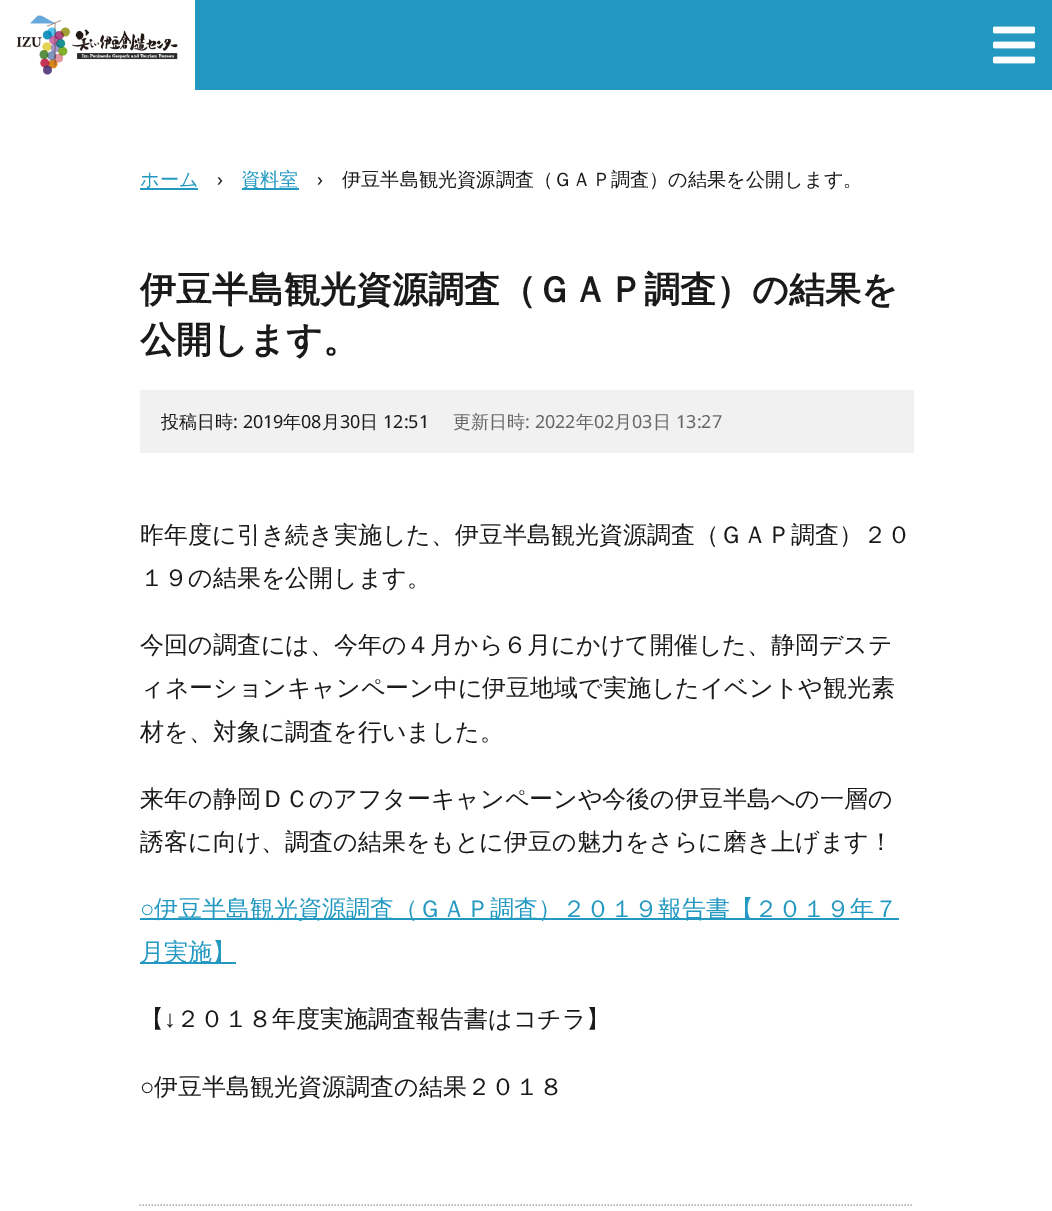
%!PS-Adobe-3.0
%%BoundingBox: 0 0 1052 1211
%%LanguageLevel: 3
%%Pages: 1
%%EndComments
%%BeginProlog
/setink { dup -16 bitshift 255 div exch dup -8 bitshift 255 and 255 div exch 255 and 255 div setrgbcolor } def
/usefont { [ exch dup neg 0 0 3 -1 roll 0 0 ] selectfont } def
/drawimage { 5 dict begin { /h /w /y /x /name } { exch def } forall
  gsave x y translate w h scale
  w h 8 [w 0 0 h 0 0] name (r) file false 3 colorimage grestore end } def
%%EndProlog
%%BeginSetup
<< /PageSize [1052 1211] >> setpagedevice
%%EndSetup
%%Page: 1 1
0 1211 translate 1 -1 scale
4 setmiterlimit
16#FFFFFF setink
0 0 1052 1211 rectfill
16#2399C1 setink
195 0 857 90 rectfill
(img1.raw) 16 15 162 60 drawimage
(img2.raw) 993 26 42 38 drawimage
/WenQuanYiZenHei-Medium 19.2 usefont
140 186 moveto (ホーム) show
140 188 58 2 rectfill
/NotoSans-Regular 19.2 usefont
16#1A1A1A setink
217 186 moveto (›) show
16#2399C1 setink
242 188 57 2 rectfill
/WenQuanYiZenHei-Medium 19.2 usefont
241 186 moveto (資料室) show
/NotoSans-Regular 19.2 usefont
16#1A1A1A setink
317 186 moveto (›) show
/WenQuanYiZenHei-Medium 19.2 usefont
342 186 moveto (伊豆半島観光資源調査（ＧＡＰ調査）の結果を公開します。) show
/WenQuanYiZenHei-Bold 36 usefont
140 302 moveto (伊豆半島観光資源調査（ＧＡＰ調査）の結果を) show
140 352 moveto (公開します。) show
16#F1F1F1 setink
140 390 774 63 rectfill
/WenQuanYiZenHei-Medium 18 usefont
16#1A1A1A setink
161 428 moveto (投稿日時) show
/NotoSans-Regular 18 usefont
233 428 moveto (: 2019) show
/WenQuanYiZenHei-Medium 18 usefont
283 428 moveto (年) show
/NotoSans-Regular 18 usefont
301 428 moveto (08) show
/WenQuanYiZenHei-Medium 18 usefont
322 428 moveto (月) show
/NotoSans-Regular 18 usefont
340 428 moveto (30) show
/WenQuanYiZenHei-Medium 18 usefont
360 428 moveto (日) show
/NotoSans-Regular 18 usefont
383 428 moveto (12:51) show
/WenQuanYiZenHei-Medium 18 usefont
16#666666 setink
453 428 moveto (更新日時) show
/NotoSans-Regular 18 usefont
525 428 moveto (: 2022) show
/WenQuanYiZenHei-Medium 18 usefont
576 428 moveto (年) show
/NotoSans-Regular 18 usefont
594 428 moveto (02) show
/WenQuanYiZenHei-Medium 18 usefont
614 428 moveto (月) show
/NotoSans-Regular 18 usefont
632 428 moveto (03) show
/WenQuanYiZenHei-Medium 18 usefont
653 428 moveto (日) show
/NotoSans-Regular 18 usefont
676 428 moveto (13:27) show
/WenQuanYiZenHei-Medium 24 usefont
16#1A1A1A setink
[
    [(昨年度に引き続き実施した、伊豆半島観光資源調査（ＧＡＰ調査）２０) 140 543]
    [(１９の結果を公開します。) 140 586]
    [(今回の調査には、今年の４月から６月にかけて開催した、静岡デステ) 140 653]
    [(ィネーションキャンペーン中に伊豆地域で実施したイベントや観光素) 140 696]
    [(材を、対象に調査を行いました。) 140 740]
    [(来年の静岡ＤＣのアフターキャンペーンや今後の伊豆半島への一層の) 140 807]
    [(誘客に向け、調査の結果をもとに伊豆の魅力をさらに磨き上げます！) 140 850]
] { aload pop moveto show } forall
/LiberationSans-Regular 24 usefont
16#2399C1 setink
140 917 moveto (○) show
140 918 759 2 rectfill
/WenQuanYiZenHei-Medium 24 usefont
154 917 moveto (伊豆半島観光資源調査（ＧＡＰ調査）２０１９報告書【２０１９年７) show
140 962 96 2 rectfill
140 960 moveto (月実施】) show
16#1A1A1A setink
140 1027 moveto (【) show
/LiberationSans-Regular 24 usefont
164 1027 moveto (↓) show
/WenQuanYiZenHei-Medium 24 usefont
176 1027 moveto (２０１８年度実施調査報告書はコチラ】) show
/LiberationSans-Regular 24 usefont
140 1095 moveto (○) show
/WenQuanYiZenHei-Medium 24 usefont
154 1095 moveto (伊豆半島観光資源調査の結果２０１８) show
16#B3B3B3 setink
1.5 setlinewidth
[1.5 1.5] 0 setdash
139.5 1205 moveto 913.5 1205 lineto stroke
showpage
%%EOF
